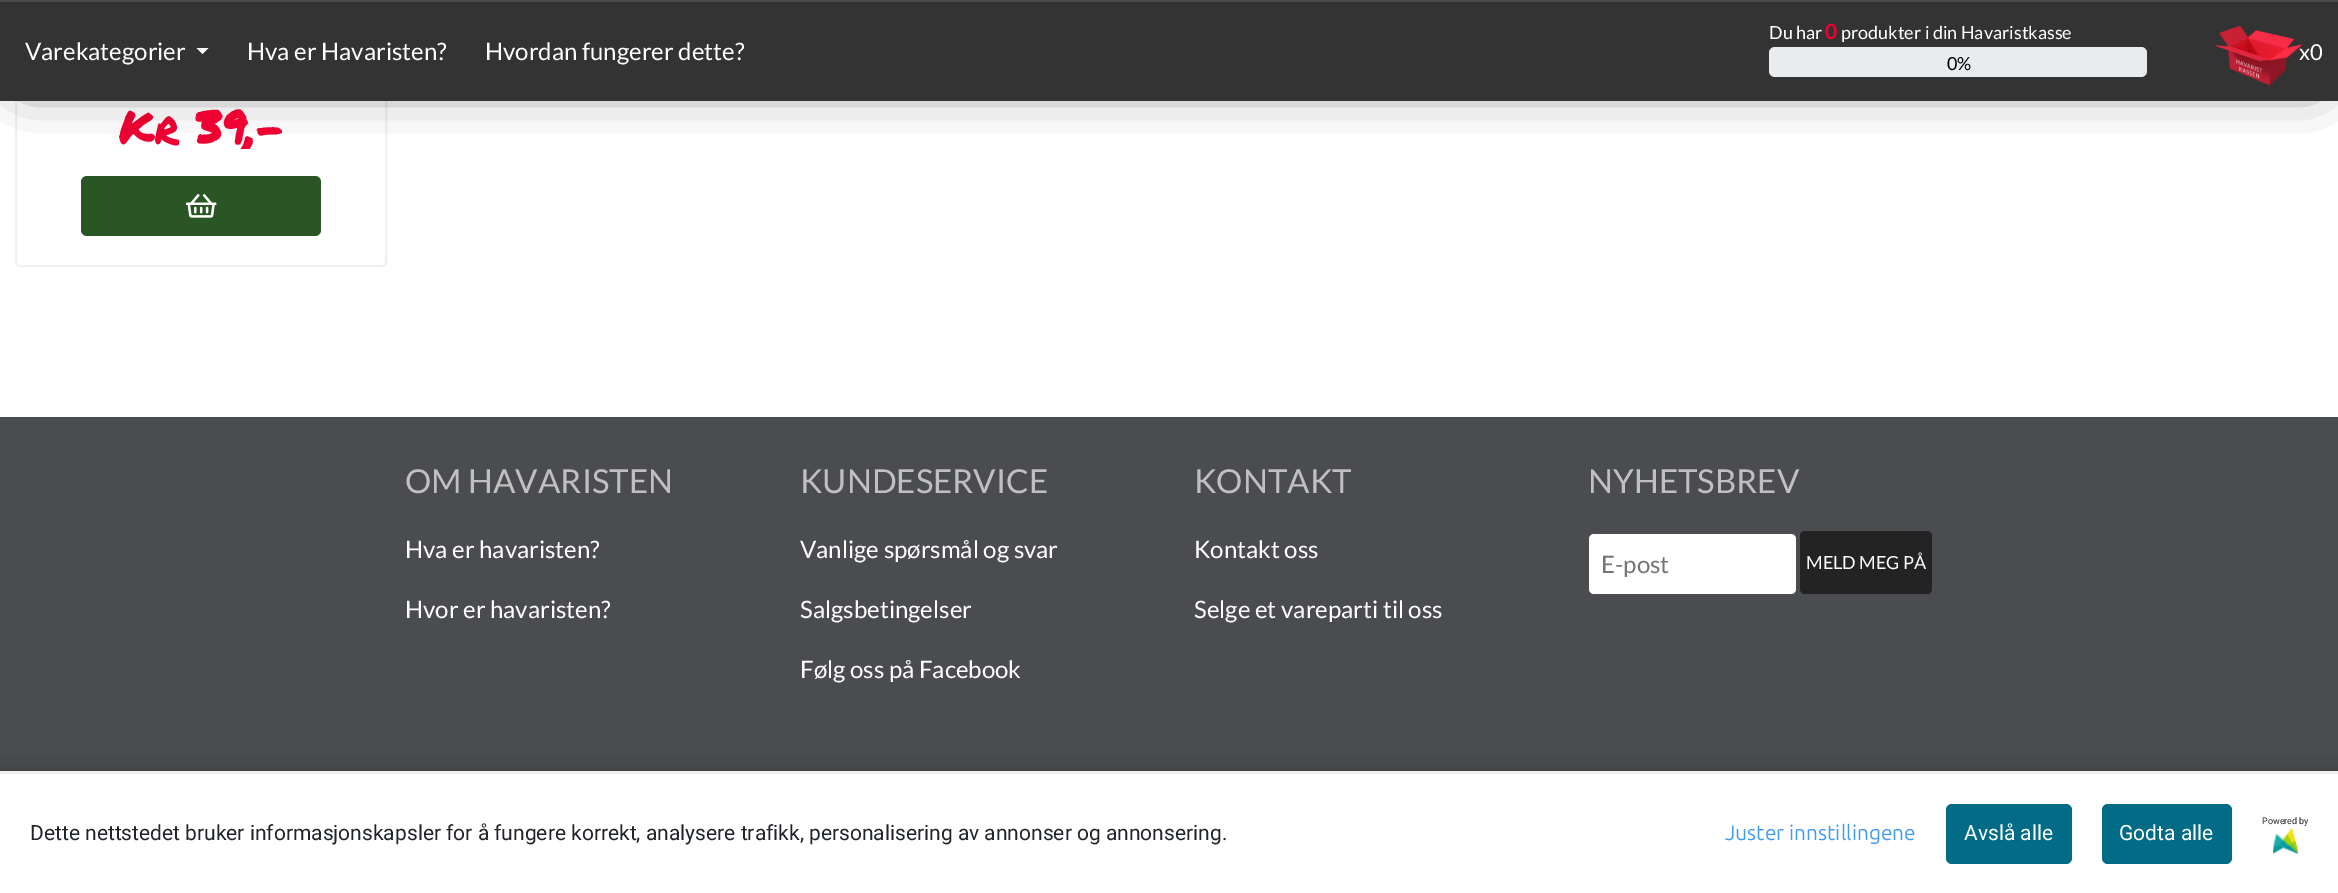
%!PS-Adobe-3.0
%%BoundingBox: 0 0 2338 893
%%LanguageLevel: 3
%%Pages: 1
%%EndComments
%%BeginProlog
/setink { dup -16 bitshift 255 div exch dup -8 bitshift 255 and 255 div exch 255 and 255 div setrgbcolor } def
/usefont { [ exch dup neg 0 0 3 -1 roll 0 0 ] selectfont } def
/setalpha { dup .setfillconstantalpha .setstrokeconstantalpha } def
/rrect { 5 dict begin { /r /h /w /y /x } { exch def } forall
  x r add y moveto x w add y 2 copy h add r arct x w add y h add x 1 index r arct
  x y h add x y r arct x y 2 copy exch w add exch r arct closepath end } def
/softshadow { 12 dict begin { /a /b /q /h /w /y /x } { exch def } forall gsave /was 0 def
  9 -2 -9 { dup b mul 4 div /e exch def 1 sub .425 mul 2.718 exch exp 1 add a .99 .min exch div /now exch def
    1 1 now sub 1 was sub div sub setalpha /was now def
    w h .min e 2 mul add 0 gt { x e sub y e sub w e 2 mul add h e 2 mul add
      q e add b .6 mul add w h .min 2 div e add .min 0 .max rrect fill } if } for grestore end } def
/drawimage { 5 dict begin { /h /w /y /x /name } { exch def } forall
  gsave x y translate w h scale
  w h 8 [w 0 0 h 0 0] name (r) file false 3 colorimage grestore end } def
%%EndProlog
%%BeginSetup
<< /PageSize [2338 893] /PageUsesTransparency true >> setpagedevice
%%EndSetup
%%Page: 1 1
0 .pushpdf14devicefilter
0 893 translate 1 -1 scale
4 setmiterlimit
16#FFFFFF setink
0 0 2338 893 rectfill
16#F0F0F0 setink
2 setlinewidth
16 -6 370 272 4 rrect stroke
(img2.raw) 119 110 61 36 drawimage
16#000000 setink
26 26 2287 49 0 26 1 softshadow
16#333333 setink
0 2 2338 99 rectfill
16#4B4C4F setink
0 0 2338 2 rectfill
/Lato-Regular 24 usefont
16#FFFFFF setink
25 60 moveto (Varekategorier) show
196.5 48 moveto 208.5 48 lineto 202.5 54 lineto closepath fill
247 60 moveto (Hva er Havaristen?) show
485 60 moveto (Hvordan fungerer dette?) show
/Lato-Regular 18 usefont
1769 39 moveto (Du har) show
/Lato-Bold 21 usefont
16#EF0033 setink
1825 39 moveto (0) show
/Lato-Regular 18 usefont
16#FFFFFF setink
1841 39 moveto (produkter i din Havaristkasse) show
16#E9ECEF setink
1769 47 378 30 6 rrect fill
16#000000 setink
1947 70 moveto (0%) show
(img1.raw) 2215 25 88 61 drawimage
/Lato-Regular 22 usefont
16#FFFFFF setink
2299 60 moveto (x0) show
gsave
32 77 339 72 rectclip
/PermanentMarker-Bold 46 usefont
16#EF0033 setink
196 144 moveto (39,-) show
grestore
16#2A5625 setink
81 176 240 60 6 rrect fill
(img3.raw) 186 194 31 24 drawimage
16#4B4C4F setink
0 417 2338 354 rectfill
/Lato-Regular 33 usefont
16#C0C0C0 setink
405 493 moveto (OM HAVARISTEN) show
/Lato-Regular 24 usefont
16#FFFFFF setink
405 558 moveto (Hva er havaristen?) show
405 618 moveto (Hvor er havaristen?) show
/Lato-Regular 33 usefont
16#C0C0C0 setink
800 493 moveto (KUNDESERVICE) show
/Lato-Regular 24 usefont
16#FFFFFF setink
[
    [(Vanlige spørsmål og svar) 800 558]
    [(Salgsbetingelser) 800 618]
    [(Følg oss på Facebook) 800 678]
] { aload pop moveto show } forall
/Lato-Regular 33 usefont
16#C0C0C0 setink
1194 493 moveto (KONTAKT) show
/Lato-Regular 24 usefont
16#FFFFFF setink
1194 558 moveto (Kontakt oss) show
1194 618 moveto (Selge et vareparti til oss) show
/Lato-Regular 33 usefont
16#C0C0C0 setink
1588 493 moveto (NYHETSBREV) show
16#FFFFFF setink
1589 534 207 60 5 rrect fill
/Lato-Regular 24 usefont
16#757575 setink
1601 573 moveto (E-post) show
16#232323 setink
1800 531 132 63 5 rrect fill
/Lato-Regular 18 usefont
16#FFFFFF setink
1806 569 moveto (MELD MEG PÅ) show
16#000000 setink
0 771 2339 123 0 7.5 0.25 softshadow
16#FFFFFF setink
0 774 2338 119 rectfill
16#EEEEEE setink
0 771 2338 3 rectfill
/Roboto-Regular 21 usefont
16#212529 setink
30 840 moveto (Dette nettstedet bruker informasjonskapsler for å fungere korrekt, analysere trafikk, personalisering av annonser og annonsering.) show
/Ubuntu-Regular 21 usefont
16#409AEF setink
1725 840 moveto (Juster innstillingene) show
/Roboto-Regular 9 usefont
16#212529 setink
2262 824 moveto (Powered by) show
(img4.raw) 2273 828 25 26 drawimage
16#026B85 setink
1946 804 126 60 6 rrect fill
/Roboto-Regular 21 usefont
16#FFFFFF setink
1964 840 moveto (Avslå alle) show
16#026B85 setink
2102 804 130 60 6 rrect fill
16#FFFFFF setink
2119 840 moveto (Godta alle) show
.poppdf14devicefilter showpage
%%EOF
